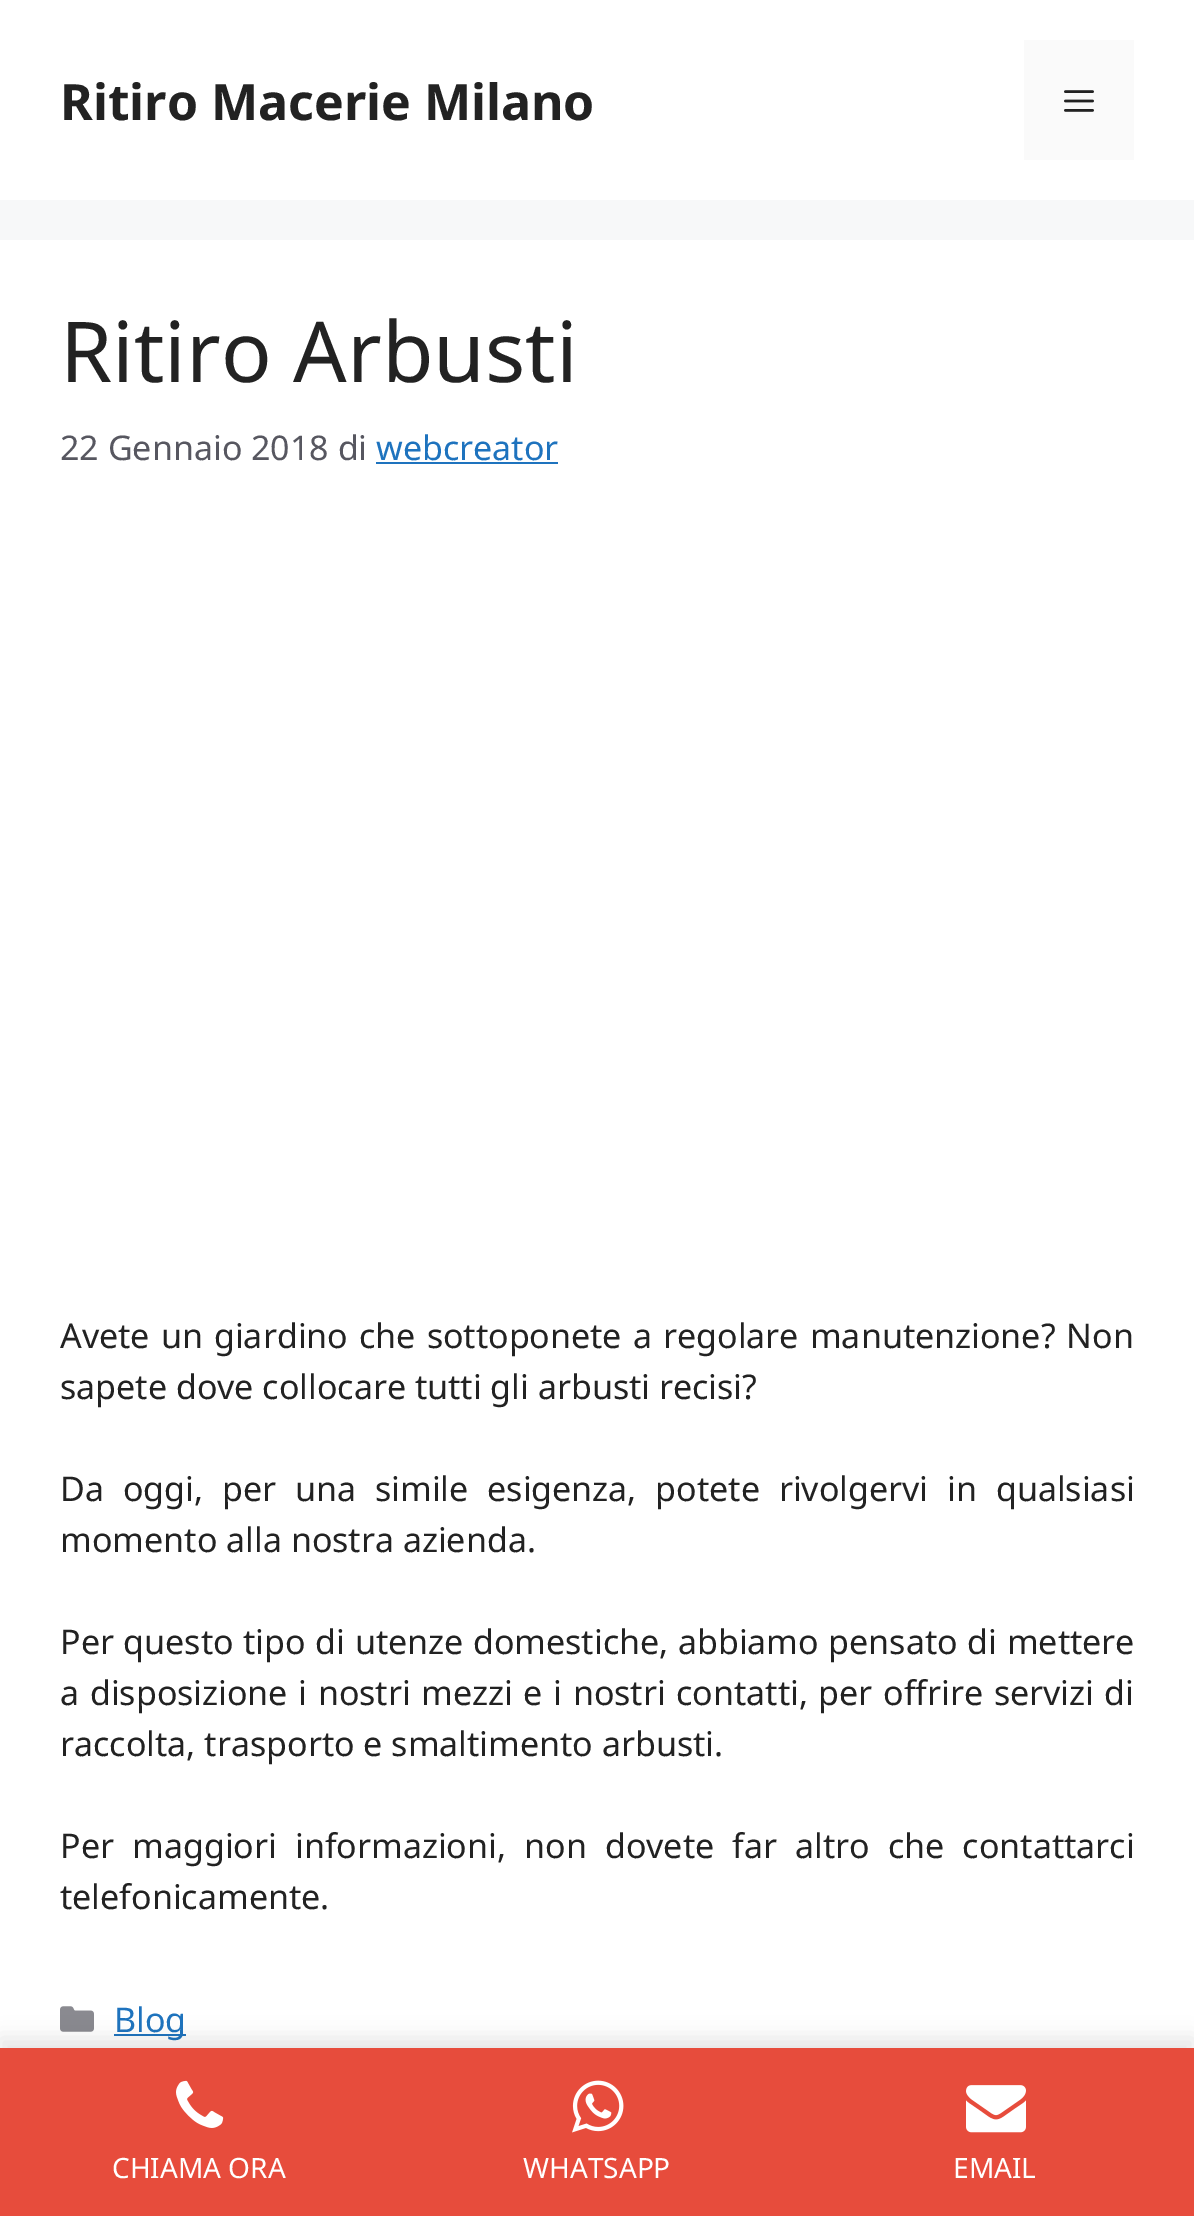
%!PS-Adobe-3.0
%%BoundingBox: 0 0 1194 2216
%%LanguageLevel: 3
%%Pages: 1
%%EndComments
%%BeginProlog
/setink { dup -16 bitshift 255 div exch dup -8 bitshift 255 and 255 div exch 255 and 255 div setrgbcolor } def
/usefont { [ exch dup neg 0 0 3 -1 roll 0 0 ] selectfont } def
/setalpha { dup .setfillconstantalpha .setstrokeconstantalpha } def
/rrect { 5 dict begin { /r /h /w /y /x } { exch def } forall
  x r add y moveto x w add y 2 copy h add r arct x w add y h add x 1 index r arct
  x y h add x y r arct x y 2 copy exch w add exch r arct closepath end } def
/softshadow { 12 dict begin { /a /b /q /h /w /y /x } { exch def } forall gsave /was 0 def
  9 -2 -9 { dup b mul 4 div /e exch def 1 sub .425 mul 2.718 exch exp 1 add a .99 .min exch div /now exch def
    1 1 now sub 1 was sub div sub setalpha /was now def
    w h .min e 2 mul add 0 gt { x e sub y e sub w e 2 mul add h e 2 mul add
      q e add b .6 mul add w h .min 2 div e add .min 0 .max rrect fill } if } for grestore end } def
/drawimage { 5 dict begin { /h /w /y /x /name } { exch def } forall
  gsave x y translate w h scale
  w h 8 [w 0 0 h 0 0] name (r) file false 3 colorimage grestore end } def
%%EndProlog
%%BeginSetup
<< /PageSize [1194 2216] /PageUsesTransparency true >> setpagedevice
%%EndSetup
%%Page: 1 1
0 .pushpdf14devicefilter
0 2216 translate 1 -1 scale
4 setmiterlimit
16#F7F8F9 setink
0 0 1194 2216 rectfill
16#FFFFFF setink
0 0 1194 200 rectfill
/NotoSans-Bold 50 usefont
16#222222 setink
60 120 moveto (Ritiro Macerie Milano) show
16#FAFAFA setink
1024 40 110 120 rectfill
(img1.raw) 1064 90 30 22 drawimage
16#FFFFFF setink
0 240 1194 1808 rectfill
/NotoSans-Regular 84 usefont
16#222222 setink
60 382 moveto (Ritiro Arbusti) show
/NotoSans-Regular 34 usefont
16#575760 setink
60 460 moveto (22 Gennaio 2018 di) show
16#1E73BE setink
376 460 moveto (webcreator) show
376 462 182 2 rectfill
16#222222 setink
60 1348 moveto 2.25 0 32 (Avete un giardino che sottoponete a regolare manutenzione? Non) widthshow
60 1399 moveto (sapete dove collocare tutti gli arbusti recisi?) show
60 1501 moveto 10 0 32 (Da oggi, per una simile esigenza, potete rivolgervi in qualsiasi) widthshow
60 1552 moveto (momento alla nostra azienda.) show
60 1654 moveto 0.75 0 32 (Per questo tipo di utenze domestiche, abbiamo pensato di mettere) widthshow
60 1705 moveto 1.75 0 32 (a disposizione i nostri mezzi e i nostri contatti, per offrire servizi di) widthshow
60 1756 moveto (raccolta, trasporto e smaltimento arbusti.) show
60 1858 moveto 9.25 0 32 (Per maggiori informazioni, non dovete far altro che contattarci) widthshow
60 1909 moveto (telefonicamente.) show
(img2.raw) 60 2006 34 26 drawimage
16#1E73BE setink
114 2034 72 2 rectfill
114 2032 moveto (Blog) show
16#000000 setink
0 2038 1194 168 0 10 0.1 softshadow
16#E74C3C setink
0 2048 1194 168 rectfill
(img3.raw) 176 2080 48 48 drawimage
/NotoSans-Regular 28 usefont
16#FFFFFF setink
112 2178 moveto (CHIAMA ORA) show
(img4.raw) 572 2080 52 53 drawimage
523 2178 moveto (WHATSAPP) show
(img5.raw) 966 2085 60 48 drawimage
953 2178 moveto (EMAIL) show
.poppdf14devicefilter showpage
%%EOF
